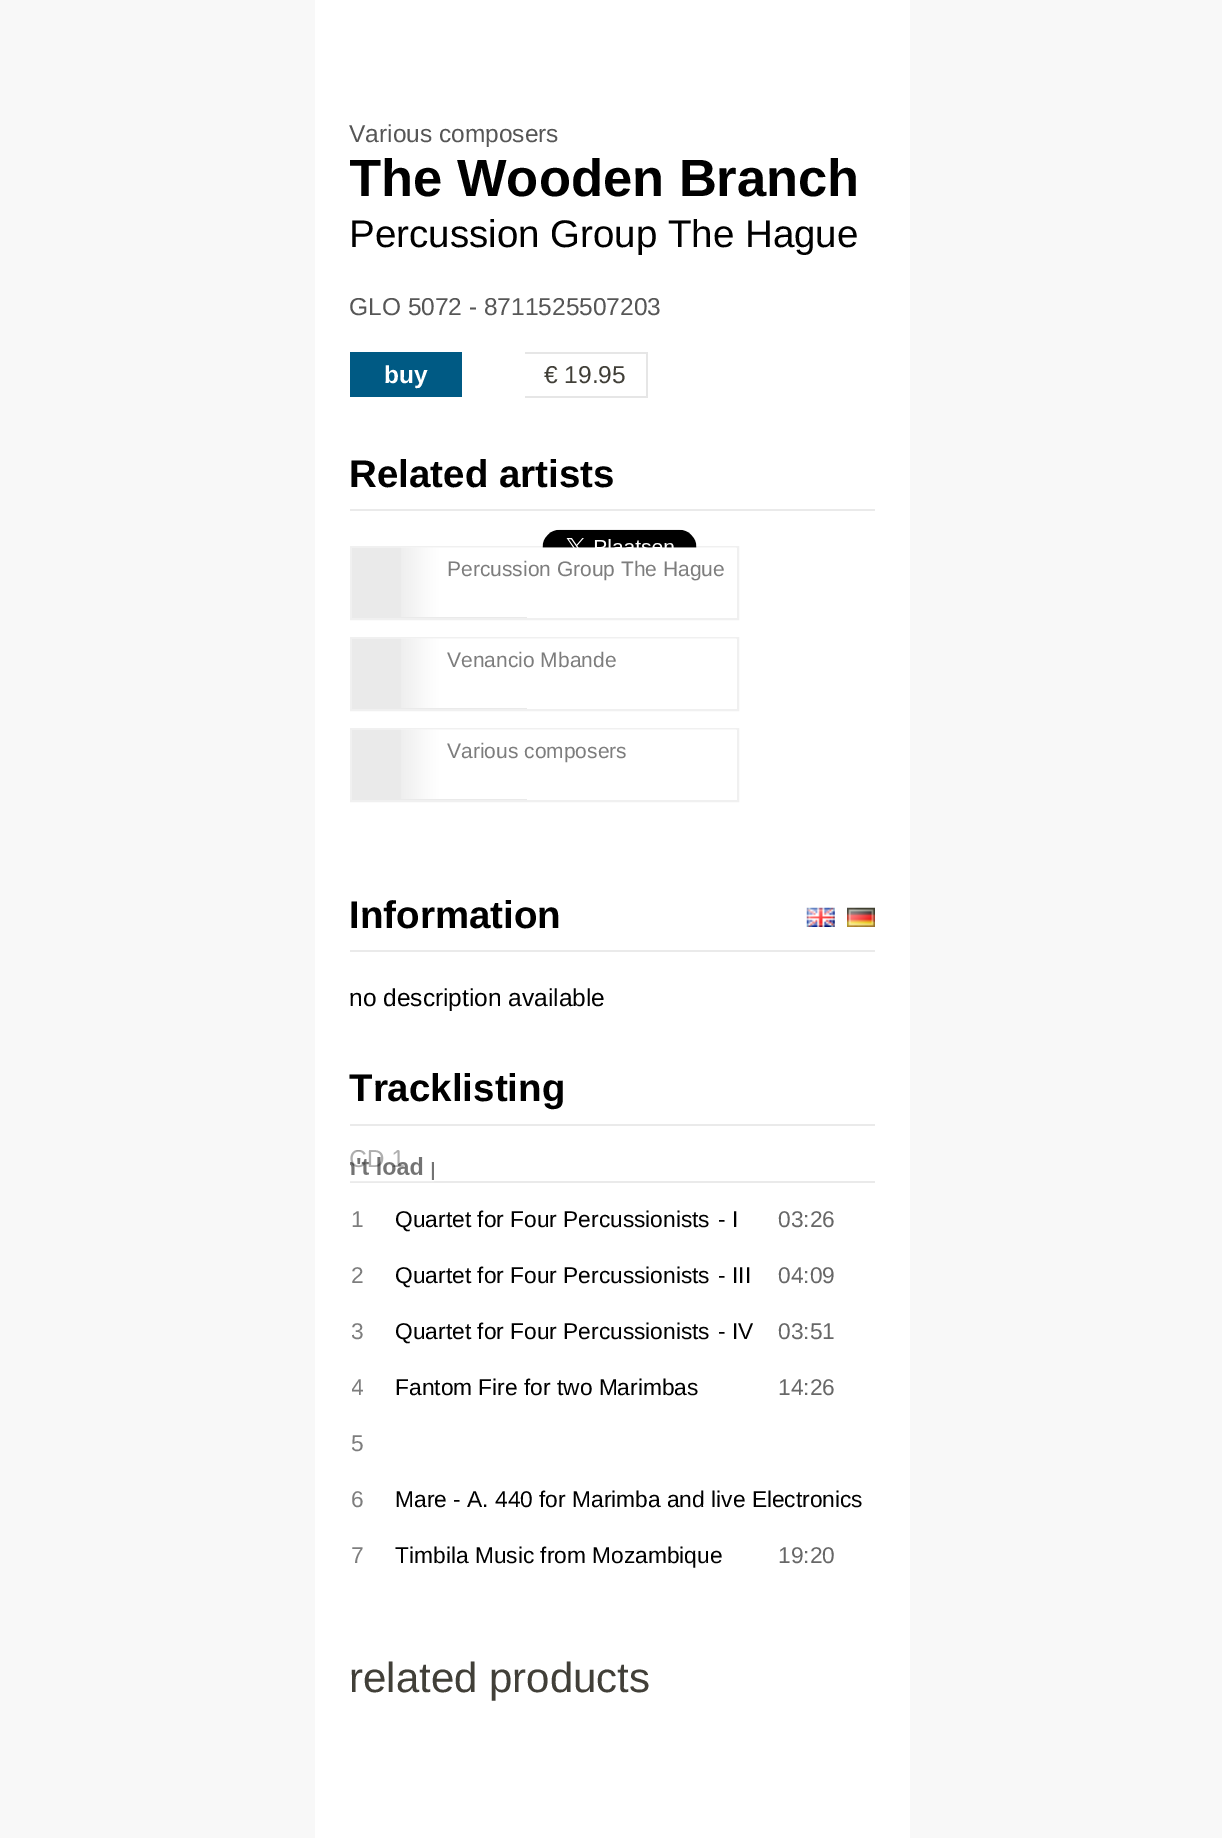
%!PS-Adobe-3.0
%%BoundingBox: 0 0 1222 1838
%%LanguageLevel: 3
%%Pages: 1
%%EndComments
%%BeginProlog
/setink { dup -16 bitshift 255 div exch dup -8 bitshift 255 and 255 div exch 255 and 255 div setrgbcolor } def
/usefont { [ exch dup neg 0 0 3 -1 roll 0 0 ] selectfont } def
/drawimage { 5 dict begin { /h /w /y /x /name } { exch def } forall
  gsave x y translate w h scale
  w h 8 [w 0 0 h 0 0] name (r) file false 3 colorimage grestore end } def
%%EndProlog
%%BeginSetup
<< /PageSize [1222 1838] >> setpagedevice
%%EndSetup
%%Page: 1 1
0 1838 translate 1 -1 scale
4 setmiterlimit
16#F8F8F8 setink
0 0 1222 1838 rectfill
16#FFFFFF setink
315 0 595 1838 rectfill
/LiberationSans-Regular 24.5 usefont
16#565656 setink
349 142 moveto (Various composers) show
gsave
350 30 560 374 rectclip
/LiberationSans-Bold 52.5 usefont
16#000000 setink
349 196 moveto (The Wooden Branch) show
grestore
/LiberationSans-Regular 38.5 usefont
16#000000 setink
349 247 moveto (Percussion Group The Hague) show
/LiberationSans-Regular 24.5 usefont
16#565656 setink
349 315 moveto (GLO 5072 - 8711525507203) show
16#005A84 setink
350 352 112 45 rectfill
/LiberationSans-Bold 24.5 usefont
16#FFFFFF setink
384 383 moveto (buy) show
[
    [525 352 123 2 16#E6E6E6]
    [646 352 2 45 16#E6E6E6]
    [525 396 123 2 16#E6E6E6]
] { aload pop setink rectfill } forall
/LiberationSans-Regular 24.5 usefont
16#413F38 setink
544 383 moveto (€ 19.95) show
16#F0F0F0 setink
2 setlinewidth
351 547 387 72 rectstroke
(img1.raw) 542 529 155 19 drawimage
16#EAEAEA setink
350 509 525 2 rectfill
/LiberationSans-Bold 38.5 usefont
16#000000 setink
349 487 moveto (Related artists) show
16#EAEAEA setink
352 548 175 70 rectfill
(img2.raw) 401 547 336 70 drawimage
/LiberationSans-Regular 21 usefont
16#7D7D7D setink
447 576 moveto (Percussion Group The Hague) show
16#F0F0F0 setink
351 638 387 72 rectstroke
16#EAEAEA setink
352 639 175 70 rectfill
(img3.raw) 401 638 336 70 drawimage
16#7D7D7D setink
447 667 moveto (Venancio Mbande) show
16#F0F0F0 setink
351 729 387 72 rectstroke
16#EAEAEA setink
352 730 175 70 rectfill
(img3.raw) 401 729 336 70 drawimage
16#7D7D7D setink
447 758 moveto (Various composers) show
16#EAEAEA setink
350 950 525 2 rectfill
/LiberationSans-Bold 38.5 usefont
16#000000 setink
349 928 moveto (Information) show
(img4.raw) 806 907 29 20 drawimage
(img5.raw) 847 907 28 20 drawimage
/LiberationSans-Regular 24.5 usefont
349 1006 moveto (no description available) show
16#EAEAEA setink
350 1124 525 2 rectfill
/LiberationSans-Bold 38.5 usefont
16#000000 setink
349 1101 moveto (Tracklisting) show
16#EAEAEA setink
350 1181 525 2 rectfill
/LiberationSans-Regular 24.5 usefont
16#9A9A9A setink
349 1167 moveto (CD 1) show
/LiberationSans-Regular 22.75 usefont
16#7D7D7D setink
351 1227 moveto (1) show
16#000000 setink
395 1227 moveto (Quartet for Four Percussionists) show
718 1227 moveto (- I) show
16#676767 setink
778 1227 moveto (03:26) show
16#7D7D7D setink
351 1283 moveto (2) show
16#000000 setink
395 1283 moveto (Quartet for Four Percussionists) show
718 1283 moveto (- III) show
16#676767 setink
778 1283 moveto (04:09) show
16#7D7D7D setink
351 1339 moveto (3) show
16#000000 setink
395 1339 moveto (Quartet for Four Percussionists) show
718 1339 moveto (- IV) show
16#676767 setink
778 1339 moveto (03:51) show
gsave
352 1362 521 52 rectclip
16#7D7D7D setink
351 1395 moveto (4) show
grestore
16#000000 setink
395 1395 moveto (Fantom Fire for two Marimbas) show
16#676767 setink
778 1395 moveto (14:26) show
16#7D7D7D setink
351 1451 moveto (5) show
351 1507 moveto (6) show
16#000000 setink
395 1507 moveto (Mare - A. 440 for Marimba and live Electronics) show
16#7D7D7D setink
351 1563 moveto (7) show
16#000000 setink
395 1563 moveto (Timbila Music from Mozambique) show
16#676767 setink
778 1563 moveto (19:20) show
(img6.raw) 350 1151 84 31 drawimage
/LiberationSans-Regular 42 usefont
16#413F38 setink
349 1692 moveto (related products) show
showpage
%%EOF
